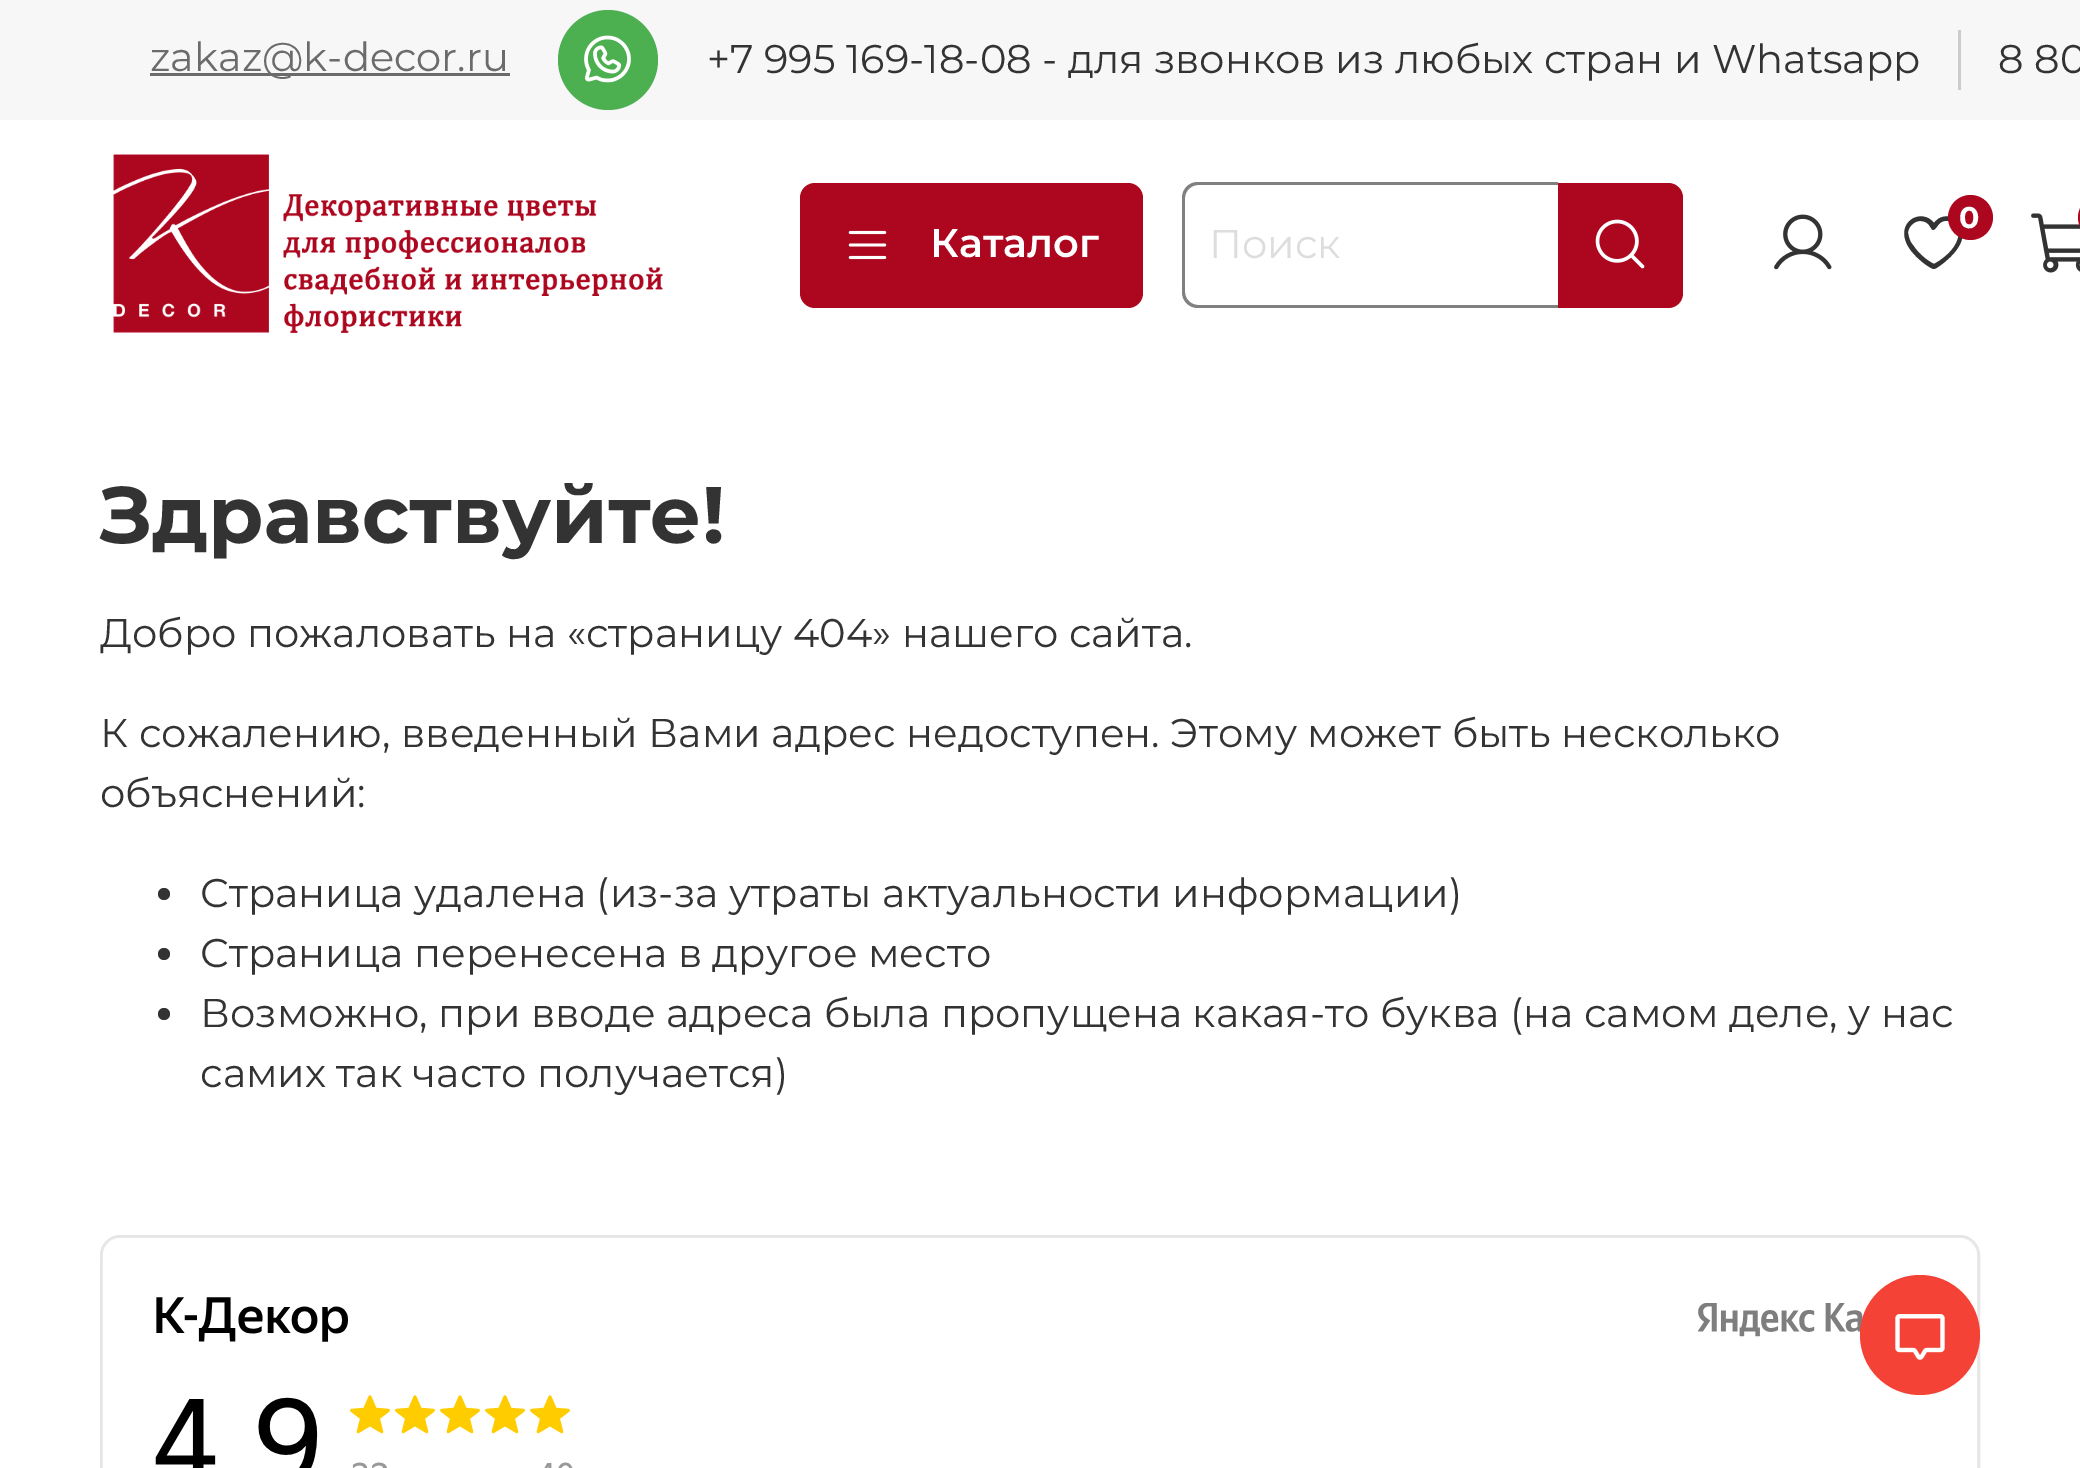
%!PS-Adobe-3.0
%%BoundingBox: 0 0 2080 1468
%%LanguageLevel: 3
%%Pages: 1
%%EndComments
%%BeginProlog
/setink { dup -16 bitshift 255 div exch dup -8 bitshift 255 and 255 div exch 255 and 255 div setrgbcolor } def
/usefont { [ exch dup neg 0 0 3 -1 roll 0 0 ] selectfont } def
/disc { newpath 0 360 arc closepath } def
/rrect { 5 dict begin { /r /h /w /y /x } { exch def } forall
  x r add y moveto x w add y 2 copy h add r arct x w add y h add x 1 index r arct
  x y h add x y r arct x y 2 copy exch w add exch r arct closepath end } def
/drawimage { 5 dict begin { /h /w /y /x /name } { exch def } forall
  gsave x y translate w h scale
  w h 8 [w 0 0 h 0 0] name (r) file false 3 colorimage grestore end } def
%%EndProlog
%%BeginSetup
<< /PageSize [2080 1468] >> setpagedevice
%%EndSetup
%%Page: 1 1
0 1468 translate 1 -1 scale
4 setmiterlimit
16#FFFFFF setink
0 0 2080 1468 rectfill
16#F7F7F7 setink
0 0 2080 120 rectfill
16#6B6B6B setink
150 73 360 3 rectfill
/Montserrat-Regular 40 usefont
150 71 moveto (zakaz@k-decor.ru) show
16#4CAF50 setink
608 60 50 disc fill
(img1.raw) 584 35 47 48 drawimage
16#CCCCCC setink
1958 30 3 60 rectfill
16#333333 setink
707 73 moveto (+7 995 169-18-08 - для звонков из любых стран и Whatsapp) show
1998 73 moveto (8 80) show
(img2.raw) 113 154 550 179 drawimage
(img3.raw) 1774 214 58 56 drawimage
1934 269 moveto 1931 269 1922 262 1920 260 curveto 1884 229 1919 204 1934 223 curveto 1948 204 1983 229 1947 260 curveto 1945 262 1936 269 1934 269 curveto closepath 1920 221 moveto 1914 221 1908 227 1908 233 curveto 1909 238 1910 242 1913 245 curveto 1918 253 1926 260 1934 264 curveto 1943 259 1955 250 1958 238 curveto 1959 234 1959 230 1957 227 curveto 1955 224 1952 222 1949 221 curveto 1938 219 1937 230 1933 230 curveto 1930 229 1930 221 1920 221 curveto closepath fill
16#AD071F setink
1970.5 217.5 22.5 disc fill
/Montserrat-Bold 30 usefont
16#FFFFFF setink
1959 228 moveto (0) show
(img4.raw) 2031 213 49 60 drawimage
16#AD071F setink
2078 195 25 45 22.5 rrect fill
800 183 343 125 15 rrect fill
(img5.raw) 848 230 39 30 drawimage
/Montserrat-SemiBold 40 usefont
16#FFFFFF setink
930 257 moveto (Каталог) show
16#808080 setink
1198 182 moveto 1558 182 lineto 1558 308 lineto 1198 308 lineto 1189 308 1182 301 1182 292 curveto 1182 198 lineto 1182 189 1189 182 1198 182 curveto closepath 1198 185 moveto 1558 185 lineto 1558 305 lineto 1198 305 lineto 1191 305 1185 299 1185 292 curveto 1185 198 lineto 1185 191 1191 185 1198 185 curveto closepath eofill
/Montserrat-Regular 40 usefont
16#DDDDDD setink
1209 258 moveto (Поиск) show
16#AD071F setink
1558 183 moveto 1668 183 lineto 1676.5 183 1683 189.5 1683 198 curveto 1683 293 lineto 1683 301.5 1676.5 308 1668 308 curveto 1558 308 lineto closepath fill
(img6.raw) 1595 219 50 50 drawimage
/Montserrat-Bold 80 usefont
16#333333 setink
100 543 moveto (Здравствуйте!) show
/Montserrat-Regular 40 usefont
[
    [(Добро пожаловать на «страницу 404» нашего сайта.) 100 647]
    [(К сожалению, введенный Вами адрес недоступен. Этому может быть несколько) 100 747]
    [(объяснений:) 100 807]
] { aload pop moveto show } forall
164 894 6 disc fill
200 907 moveto (Страница удалена \(из-за утраты актуальности информации\)) show
164 954 6 disc fill
200 967 moveto (Страница перенесена в другое место) show
164 1014 6 disc fill
200 1027 moveto (Возможно, при вводе адреса была пропущена какая-то буква \(на самом деле, у нас) show
200 1087 moveto (самих так часто получается\)) show
16#E6E6E6 setink
3 setlinewidth
101.5 1236.5 1877 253 18.5 rrect stroke
(img7.raw) 102 1237 1876 231 drawimage
16#F44236 setink
1920 1335 60 disc fill
(img8.raw) 1895 1314 50 46 drawimage
showpage
%%EOF
